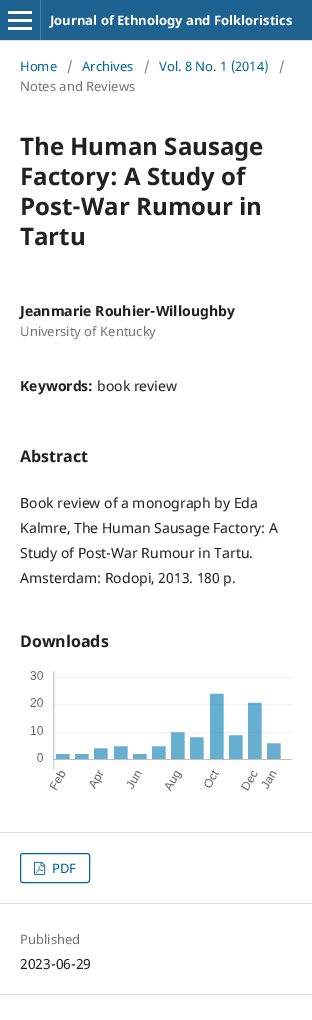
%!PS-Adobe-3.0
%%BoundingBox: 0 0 312 1020
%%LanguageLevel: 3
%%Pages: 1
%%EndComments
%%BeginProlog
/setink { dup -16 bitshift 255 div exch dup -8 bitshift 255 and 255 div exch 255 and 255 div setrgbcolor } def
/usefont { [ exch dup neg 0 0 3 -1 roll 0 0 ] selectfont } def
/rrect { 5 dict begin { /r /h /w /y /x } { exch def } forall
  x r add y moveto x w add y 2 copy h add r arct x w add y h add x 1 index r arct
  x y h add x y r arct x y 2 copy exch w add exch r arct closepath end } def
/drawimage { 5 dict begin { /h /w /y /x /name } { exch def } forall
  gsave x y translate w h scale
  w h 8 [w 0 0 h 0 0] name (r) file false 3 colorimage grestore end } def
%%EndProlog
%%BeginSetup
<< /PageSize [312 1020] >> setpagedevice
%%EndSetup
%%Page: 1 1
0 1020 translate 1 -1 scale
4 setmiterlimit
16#FFFFFF setink
0 0 312 1020 rectfill
[
    [0 0 312 40 16#1E6292]
    [0 40 312 1 16#DDDDDD]
    [40 0 1 40 16#4B81A8]
    [8 27 24 3 16#FFFFFF]
    [8 11 24 3 16#FFFFFF]
    [8 19 24 3 16#FFFFFF]
] { aload pop setink rectfill } forall
/NotoSans-Bold 13 usefont
50 25 moveto (Journal of Ethnology and Folkloristics) show
/NotoSans-Regular 13 usefont
16#006798 setink
20 71 moveto (Home) show
16#757575 setink
67 71 moveto (/) show
16#006798 setink
82 71 moveto (Archives) show
16#757575 setink
144 71 moveto (/) show
16#006798 setink
159 71 moveto (Vol. 8 No. 1 \(2014\)) show
16#757575 setink
279 71 moveto (/) show
20 91 moveto (Notes and Reviews) show
/NotoSans-Bold 24 usefont
16#212121 setink
[
    [(The Human Sausage) 20 155]
    [(Factory: A Study of) 20 185]
    [(Post-War Rumour in) 20 215]
    [(Tartu) 20 245]
] { aload pop moveto show } forall
/NotoSans-Bold 14 usefont
20 316 moveto (Jeanmarie Rouhier-Willoughby) show
/NotoSans-Regular 13 usefont
16#757575 setink
20 336 moveto (University of Kentucky) show
/NotoSans-Bold 14 usefont
16#212121 setink
20 391 moveto (Keywords:) show
/NotoSans-Regular 14 usefont
97 391 moveto (book review) show
/NotoSans-Bold 16 usefont
20 462 moveto (Abstract) show
/NotoSans-Regular 14 usefont
[
    [(Book review of a monograph by Eda) 20 508]
    [(Kalmre, The Human Sausage Factory: A) 20 533]
    [(Study of Post-War Rumour in Tartu.) 20 558]
    [(Amsterdam: Rodopi, 2013. 180 p.) 20 583]
] { aload pop moveto show } forall
/NotoSans-Bold 16 usefont
20 647 moveto (Downloads) show
(img1.raw) 30 671 262 121 drawimage
16#DDDDDD setink
0 832 312 1 rectfill
0 903 312 1 rectfill
16#006798 setink
20.5 853.5 69 29 2.5 rrect stroke
(img2.raw) 34 861 12 14 drawimage
/NotoSans-Regular 13 usefont
52 873 moveto (PDF) show
16#DDDDDD setink
0 994 312 1 rectfill
16#757575 setink
20 944 moveto (Published) show
/NotoSans-Regular 14 usefont
16#212121 setink
20 969 moveto (2023-06-29) show
showpage
%%EOF
